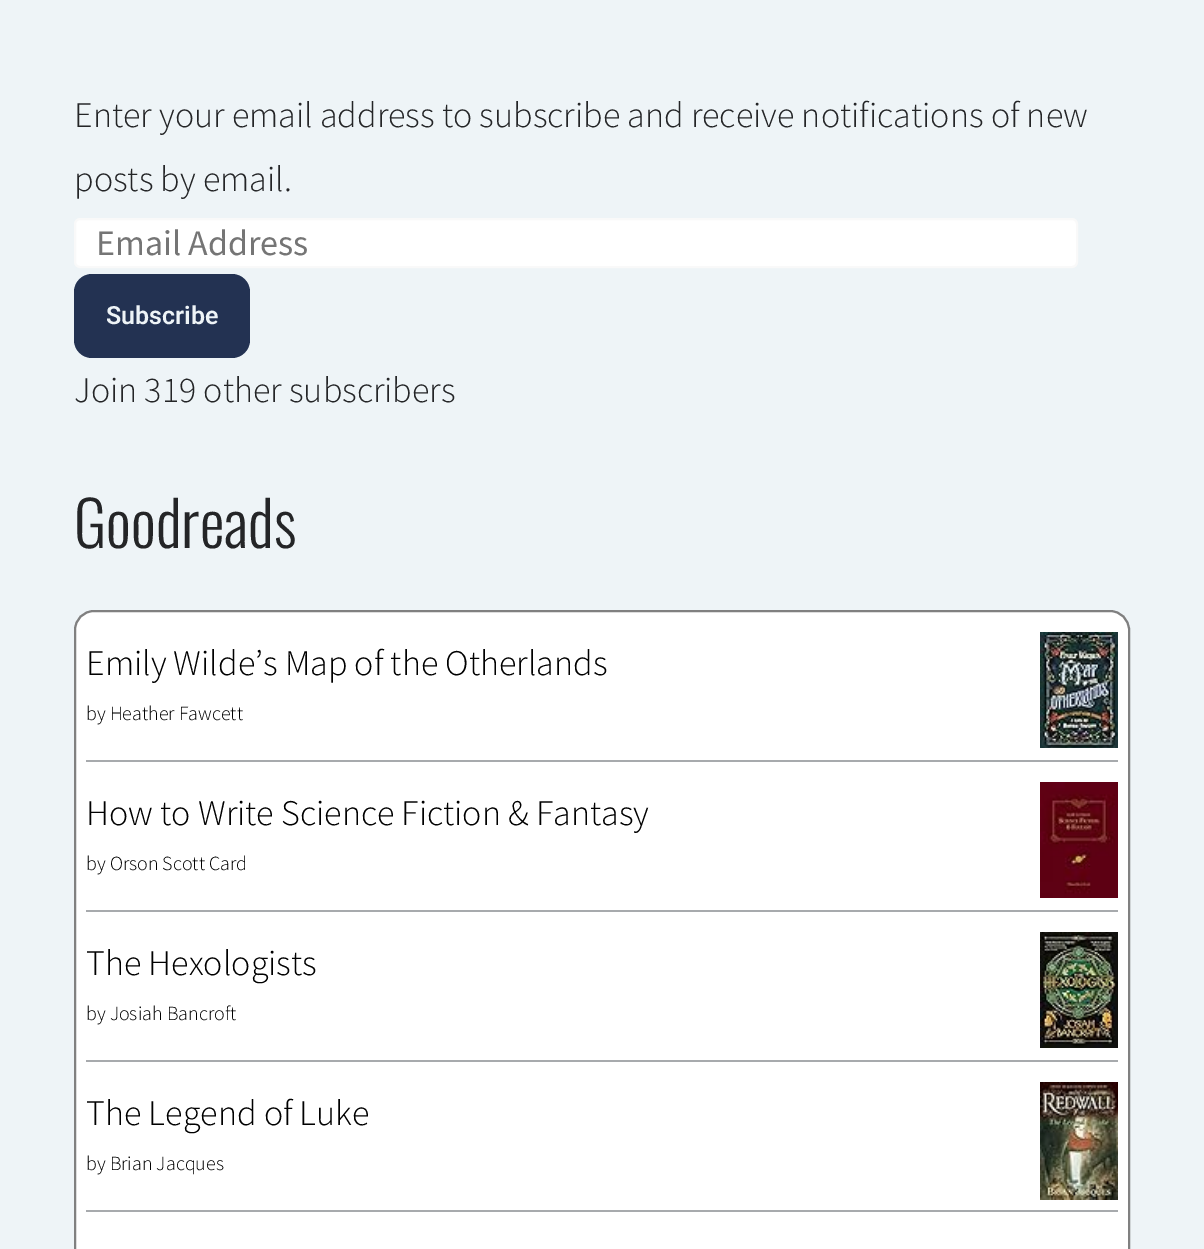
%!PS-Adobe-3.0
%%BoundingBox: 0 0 1204 1249
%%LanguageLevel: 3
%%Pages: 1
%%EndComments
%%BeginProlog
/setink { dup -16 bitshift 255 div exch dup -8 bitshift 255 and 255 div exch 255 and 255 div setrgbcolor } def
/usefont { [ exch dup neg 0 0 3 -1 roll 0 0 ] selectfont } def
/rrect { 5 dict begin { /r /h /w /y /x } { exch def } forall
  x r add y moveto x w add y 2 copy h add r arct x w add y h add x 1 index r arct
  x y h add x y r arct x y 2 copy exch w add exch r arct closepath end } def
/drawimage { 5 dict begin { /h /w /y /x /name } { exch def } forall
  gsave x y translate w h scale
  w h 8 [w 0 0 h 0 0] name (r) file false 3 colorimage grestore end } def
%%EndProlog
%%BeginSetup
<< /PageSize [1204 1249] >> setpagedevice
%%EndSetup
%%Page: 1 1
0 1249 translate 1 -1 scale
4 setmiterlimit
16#EEF4F7 setink
0 0 1204 1249 rectfill
/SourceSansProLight-Light 36 usefont
16#242527 setink
74 127 moveto (Enter your email address to subscribe and receive notifications of new) show
74 191 moveto (posts by email.) show
16#FFFFFF setink
75 219 1002 48 5 rrect gsave fill grestore
16#F9F9F9 setink
2 setlinewidth
stroke
/SourceSansPro-Regular 36 usefont
16#757575 setink
96 255 moveto (Email Address) show
16#233252 setink
74 274 176 84 18 rrect fill
/Roboto-SemiBold 25 usefont
16#EEF4F7 setink
106 324 moveto (Subscribe) show
/SourceSansProLight-Light 36 usefont
16#242527 setink
74 402 moveto (Join 319 other subscribers) show
/Oswald-Light 62 usefont
74 548 moveto (Goodreads) show
16#FFFFFF setink
75 611 1054 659 19 rrect gsave fill grestore
16#808080 setink
stroke
16#A7AAAD setink
86 760 1032 2 rectfill
/SourceSansProLight-Light 36 usefont
16#000000 setink
86 675 moveto (Emily Wilde’s Map of the Otherlands) show
(img1.raw) 1040 632 78 116 drawimage
/SourceSansProLight-Light 20 usefont
86 720 moveto (by Heather Fawcett) show
16#A7AAAD setink
86 910 1032 2 rectfill
/SourceSansProLight-Light 36 usefont
16#000000 setink
86 825 moveto (How to Write Science Fiction & Fantasy) show
(img2.raw) 1040 782 78 116 drawimage
/SourceSansProLight-Light 20 usefont
86 870 moveto (by Orson Scott Card) show
16#A7AAAD setink
86 1060 1032 2 rectfill
/SourceSansProLight-Light 36 usefont
16#000000 setink
86 975 moveto (The Hexologists) show
(img3.raw) 1040 932 78 116 drawimage
/SourceSansProLight-Light 20 usefont
86 1020 moveto (by Josiah Bancroft) show
16#A7AAAD setink
86 1210 1032 2 rectfill
/SourceSansProLight-Light 36 usefont
16#000000 setink
86 1125 moveto (The Legend of Luke) show
(img4.raw) 1040 1082 78 118 drawimage
/SourceSansProLight-Light 20 usefont
86 1170 moveto (by Brian Jacques) show
showpage
%%EOF
